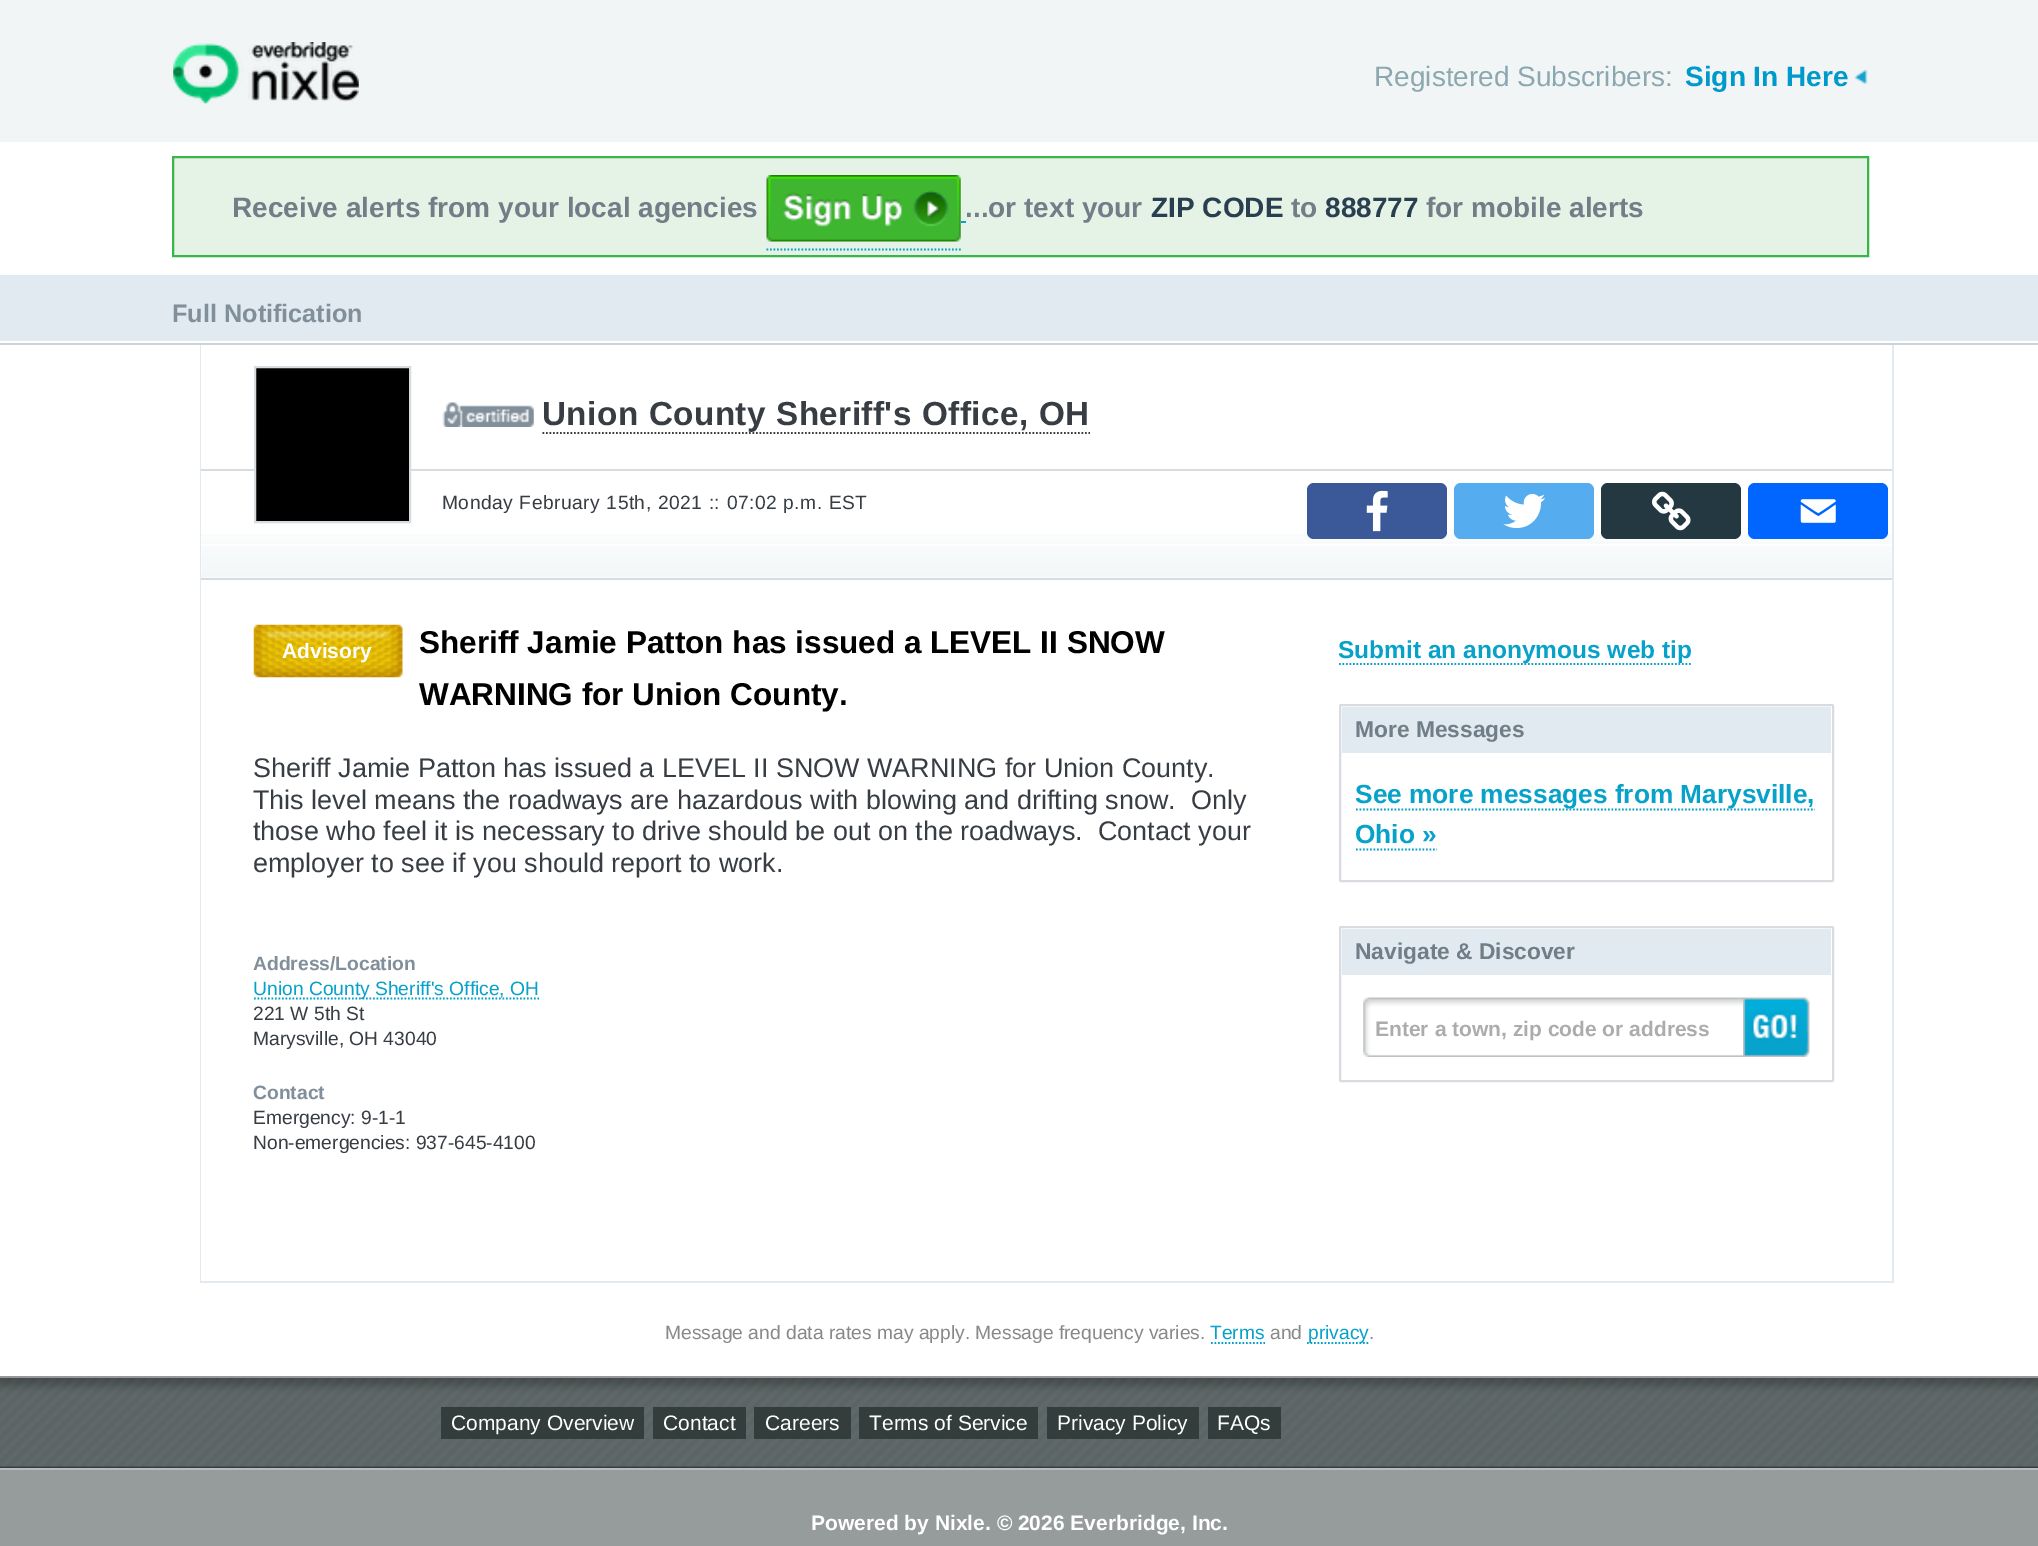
%!PS-Adobe-3.0
%%BoundingBox: 0 0 2038 1546
%%LanguageLevel: 3
%%Pages: 1
%%EndComments
%%BeginProlog
/setink { dup -16 bitshift 255 div exch dup -8 bitshift 255 and 255 div exch 255 and 255 div setrgbcolor } def
/usefont { [ exch dup neg 0 0 3 -1 roll 0 0 ] selectfont } def
/rrect { 5 dict begin { /r /h /w /y /x } { exch def } forall
  x r add y moveto x w add y 2 copy h add r arct x w add y h add x 1 index r arct
  x y h add x y r arct x y 2 copy exch w add exch r arct closepath end } def
/drawimage { 5 dict begin { /h /w /y /x /name } { exch def } forall
  gsave x y translate w h scale
  w h 8 [w 0 0 h 0 0] name (r) file false 3 colorimage grestore end } def
%%EndProlog
%%BeginSetup
<< /PageSize [2038 1546] >> setpagedevice
%%EndSetup
%%Page: 1 1
0 1546 translate 1 -1 scale
4 setmiterlimit
16#969C9C setink
0 0 2038 1546 rectfill
16#F1F5F5 setink
0 0 2038 142 rectfill
(img1.raw) 173 42 186 62 drawimage
/LiberationSans-Regular 28 usefont
16#8BA7B0 setink
1374 86 moveto (Registered Subscribers:) show
(img2.raw) 1854 70 14 14 drawimage
/LiberationSans-Bold 28 usefont
16#0099CC setink
1685 86 moveto (Sign In Here) show
16#FFFFFF setink
0 142 2038 133 rectfill
16#E5F2E6 setink
173 157 moveto 1868 157 lineto 1868 256 lineto 173 256 lineto closepath gsave fill grestore
16#39B54A setink
2 setlinewidth
stroke
16#717E88 setink
232 217 moveto (Receive alerts from your local agencies) show
16#07A2CA setink
1.8 setlinewidth
[1.75 1.75] 0 setdash
766.5 249.5 moveto 961 249.5 lineto stroke
961 221 5 2 rectfill
(img3.raw) 766 175 195 67 drawimage
16#717E88 setink
965 217 moveto (...or text your) show
16#293F4F setink
1151 217 moveto (ZIP CODE) show
16#717E88 setink
1291 217 moveto (to) show
16#293F4F setink
1325 217 moveto (888777) show
16#717E88 setink
1426 217 moveto (for mobile alerts) show
16#E0EAF0 setink
0 275 2038 66 rectfill
16#FFFFFF setink
0 341 2038 2 rectfill
/LiberationSans-Bold 25.25 usefont
16#818F9B setink
172 322 moveto (Full Notification) show
[
    [0 345 2038 1031 16#FFFFFF]
    [0 343 2038 2 16#CDD4D9]
    [1892 345 2 938 16#E0EAF0]
    [200 1281 1694 2 16#E0EAF0]
    [200 345 2 938 16#E0EAF0]
    [201 345 1 936 16#FFFFFF]
] { aload pop setink rectfill } forall
(img4.raw) 201 534 1691 44 drawimage
16#D7DCE0 setink
201 578 1691 2 rectfill
201 469 1691 2 rectfill
16#000000 setink
255 367 moveto 410 367 lineto 410 522 lineto 255 522 lineto closepath gsave fill grestore
16#D7DCE0 setink
2 setlinewidth
[] 0 setdash
stroke
(img5.raw) 442 402 92 25 drawimage
/LiberationSans-Bold 33.25 usefont
16#383D44 setink
542 425 moveto 0.5 0 32 0.45 0 (Union County Sheriff's Office, OH) awidthshow
1.8 setlinewidth
[1.75 1.75] 0 setdash
542.5 433 moveto 1090 433 lineto stroke
16#FFFFFF setink
201 544 1691 2 rectfill
/LiberationSans-Regular 19.25 usefont
16#383D44 setink
442 509 moveto 0.5 0 32 0.45 0 (Monday February 15th, 2021 :: 07:02 p.m. EST) awidthshow
16#3B5998 setink
1307 483 140 56 7 rrect fill
(img6.raw) 1366 490 22 42 drawimage
16#55ACEE setink
1454 483 140 56 7 rrect fill
(img7.raw) 1503 493 43 36 drawimage
16#243842 setink
1601 483 140 56 7 rrect fill
(img8.raw) 1652 491 39 40 drawimage
16#0166FF setink
1748 483 140 56 7 rrect fill
(img9.raw) 1800 499 36 24 drawimage
(img10.raw) 253 624 150 54 drawimage
/LiberationSans-Bold 21 usefont
16#FFFFFF setink
282 658 moveto (Advisory) show
/LiberationSans-Bold 31.5 usefont
16#000000 setink
419 653 moveto (Sheriff Jamie Patton has issued a LEVEL II SNOW) show
419 705 moveto (WARNING for Union County.) show
/LiberationSans-Regular 26.95 usefont
16#383D44 setink
[
    [(Sheriff Jamie Patton has issued a LEVEL II SNOW WARNING for Union County.) 253 777]
    [(This level means the roadways are hazardous with blowing and drifting snow.  Only) 253 809]
    [(those who feel it is necessary to drive should be out on the roadways.  Contact your) 253 840]
    [(employer to see if you should report to work.) 253 872]
] { aload pop moveto show } forall
/LiberationSans-Bold 19.25 usefont
16#818F9B setink
253 970 moveto (Address/Location) show
16#07A2CA setink
254 998.5 moveto 539 998.5 lineto stroke
/LiberationSans-Regular 19.25 usefont
253 995 moveto (Union County Sheriff's Office, OH) show
16#383D44 setink
253 1020 moveto (221 W 5th St) show
253 1045 moveto (Marysville, OH 43040) show
/LiberationSans-Bold 19.25 usefont
16#818F9B setink
253 1099 moveto (Contact) show
/LiberationSans-Regular 19.25 usefont
16#383D44 setink
253 1124 moveto (Emergency: 9-1-1) show
253 1149 moveto (Non-emergencies: 937-645-4100) show
16#07A2CA setink
1339 664 moveto 1692 664 lineto stroke
/LiberationSans-Bold 24.5 usefont
1338 658 moveto (Submit an anonymous web tip) show
16#D8DBE0 setink
2 setlinewidth
[] 0 setdash
1340 705 493 176 1 rrect stroke
16#E0EAF0 setink
1342 707 489 46 rectfill
/LiberationSans-Bold 22.75 usefont
16#717E88 setink
1355 737 moveto (More Messages) show
16#07A2CA setink
1.8 setlinewidth
[1.75 1.75] 0 setdash
1356 809.5 moveto 1815 809.5 lineto stroke
/LiberationSans-Bold 26.25 usefont
1355 803 moveto (See more messages from Marysville,) show
1355 843 moveto (Ohio ») show
1356 849.5 moveto 1437 849.5 lineto stroke
16#D8DBE0 setink
2 setlinewidth
[] 0 setdash
1340 927 493 154 1 rrect stroke
16#E0EAF0 setink
1342 929 489 46 rectfill
/LiberationSans-Bold 22.75 usefont
16#717E88 setink
1355 959 moveto (Navigate & Discover) show
(img11.raw) 1363 997 380 60 drawimage
/LiberationSans-Bold 21 usefont
16#ACACAC setink
1375 1036 moveto (Enter a town, zip code or address) show
(img12.raw) 1743 997 67 60 drawimage
/LiberationSans-Regular 19.25 usefont
16#898989 setink
665 1339 moveto (Message and data rates may apply. Message frequency varies.) show
16#07A2CA setink
1210 1339 moveto (Terms) show
1.8 setlinewidth
[1.75 1.75] 0 setdash
1211 1343 moveto 1265 1343 lineto stroke
16#898989 setink
1270 1339 moveto (and) show
16#07A2CA setink
1307 1343 moveto 1368.5 1343 lineto stroke
1308 1339 moveto (privacy) show
16#898989 setink
1369 1339 moveto (.) show
(img13.raw) 0 1378 2038 90 drawimage
[
    [0 1376 2038 2 16#96969C]
    [0 1468 2038 2 16#B8BCBC]
    [441 1407 203 32 16#323D3C]
] { aload pop setink rectfill } forall
/LiberationSans-Regular 21 usefont
16#FFFFFF setink
451 1430 moveto (Company Overview) show
16#323D3C setink
653 1407 93 32 rectfill
16#FFFFFF setink
663 1430 moveto (Contact) show
16#323D3C setink
754 1407 97 32 rectfill
16#FFFFFF setink
765 1430 moveto (Careers) show
16#323D3C setink
859 1407 179 32 rectfill
16#FFFFFF setink
869 1430 moveto (Terms of Service) show
16#323D3C setink
1047 1407 152 32 rectfill
16#FFFFFF setink
1057 1430 moveto (Privacy Policy) show
16#323D3C setink
1208 1407 73 32 rectfill
16#FFFFFF setink
1217 1430 moveto (FAQs) show
/LiberationSans-Bold 21 usefont
811 1530 moveto (Powered by Nixle. © 2026 Everbridge, Inc.) show
showpage
%%EOF
